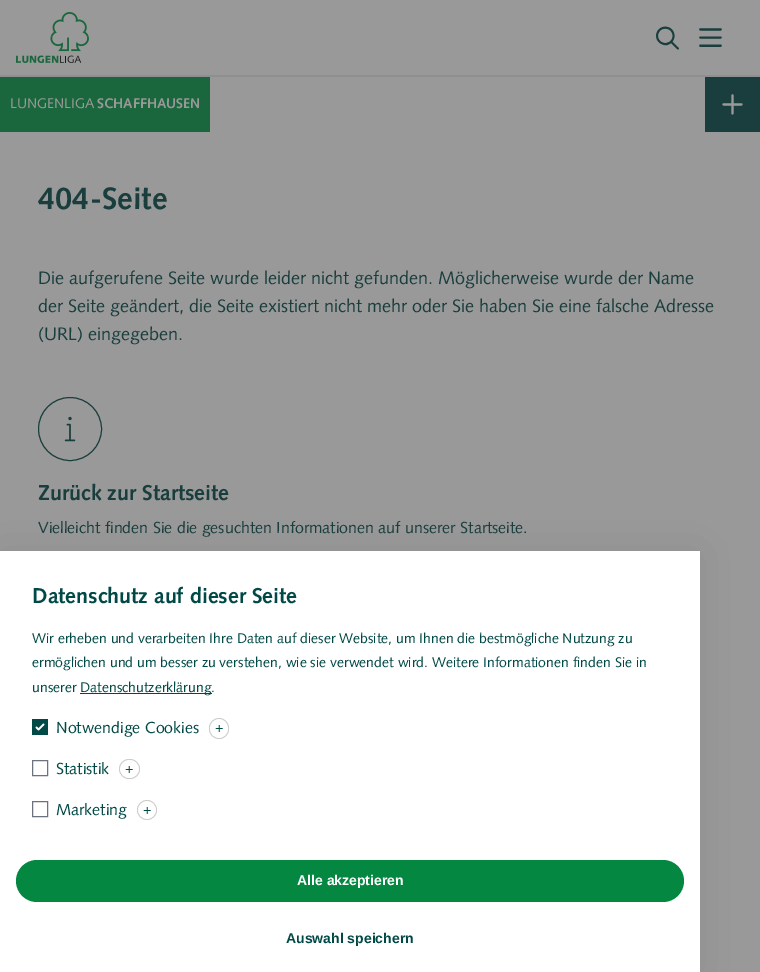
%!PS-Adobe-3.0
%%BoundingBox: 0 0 760 972
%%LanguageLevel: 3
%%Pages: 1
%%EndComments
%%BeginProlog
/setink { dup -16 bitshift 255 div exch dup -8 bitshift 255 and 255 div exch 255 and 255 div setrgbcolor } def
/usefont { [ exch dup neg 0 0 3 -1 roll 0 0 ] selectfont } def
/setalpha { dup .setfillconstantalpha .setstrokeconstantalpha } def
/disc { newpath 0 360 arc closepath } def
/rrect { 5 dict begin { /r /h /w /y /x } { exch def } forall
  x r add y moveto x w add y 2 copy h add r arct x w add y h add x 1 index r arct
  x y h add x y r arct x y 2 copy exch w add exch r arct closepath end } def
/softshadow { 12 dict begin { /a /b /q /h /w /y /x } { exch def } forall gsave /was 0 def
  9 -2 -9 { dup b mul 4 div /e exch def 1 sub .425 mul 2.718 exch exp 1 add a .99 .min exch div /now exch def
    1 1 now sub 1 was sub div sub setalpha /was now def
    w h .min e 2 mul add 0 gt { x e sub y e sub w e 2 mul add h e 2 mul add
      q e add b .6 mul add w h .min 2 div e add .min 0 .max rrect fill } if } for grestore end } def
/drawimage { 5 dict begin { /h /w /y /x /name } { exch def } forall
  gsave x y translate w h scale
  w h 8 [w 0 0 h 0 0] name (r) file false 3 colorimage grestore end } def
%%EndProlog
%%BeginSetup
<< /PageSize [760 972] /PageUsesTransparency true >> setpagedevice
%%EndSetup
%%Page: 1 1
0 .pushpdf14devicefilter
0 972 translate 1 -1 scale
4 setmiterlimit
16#999999 setink
0 0 760 972 rectfill
16#8D8F91 setink
0 75 760 2 rectfill
(img1.raw) 16 12 73 51 drawimage
(img2.raw) 656 26 23 24 drawimage
(img3.raw) 699 28 23 19 drawimage
16#1A673D setink
0 77 210 55 rectfill
/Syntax-Regular 14 usefont
16#999999 setink
10 108 moveto (LUNGENLIGA) show
/Syntax-Bold 14 usefont
97 108 moveto (SCHAFFHAUSEN) show
16#1A3E3D setink
705 77 55 55 rectfill
(img4.raw) 722 94 21 21 drawimage
/Syntax-Bold 31 usefont
38 209 moveto (404-Seite) show
/Syntax-Regular 18 usefont
[
    [(Die aufgerufene Seite wurde leider nicht gefunden. Möglicherweise wurde der Name) 38 284]
    [(der Seite geändert, die Seite existiert nicht mehr oder Sie haben Sie eine falsche Adresse) 38 312]
    [(\(URL\) eingegeben.) 38 340]
] { aload pop moveto show } forall
70 429 31.5 disc stroke
(img5.raw) 64 416 12 26 drawimage
/Syntax-Bold 21.5 usefont
38 500 moveto (Zurück zur Startseite) show
/Syntax-Regular 16 usefont
38 533 moveto (Vielleicht finden Sie die gesuchten Informationen auf unserer Startseite.) show
16#1A1A1A setink
0 551 700 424 0 25 0.1 softshadow
16#FFFFFF setink
0 551 700 421 rectfill
/Syntax-Bold 21.5 usefont
16#004947 setink
32 603 moveto (Datenschutz auf dieser Seite) show
/Syntax-Regular 14 usefont
[
    [(Wir erheben und verarbeiten Ihre Daten auf dieser Website, um Ihnen die bestmögliche Nutzung zu) 32 643]
    [(ermöglichen und um besser zu verstehen, wie sie verwendet wird. Weitere Informationen finden Sie in) 32 667]
    [(unserer) 32 692]
] { aload pop moveto show } forall
80 693 132 1 rectfill
80 692 moveto (Datenschutzerklärung.) show
32 719 16 16 rectfill
(img6.raw) 35 723 10 8 drawimage
/Syntax-Regular 16 usefont
56 733 moveto (Notwendige Cookies) show
16#CCCCCC setink
0.8 setlinewidth
209.4 718.4 19.2 20.2 9.6 rrect stroke
/Syntax-Regular 14 usefont
16#004947 setink
215 732 moveto (+) show
16#6B7280 setink
1 setlinewidth
32.5 760.5 15 15 rectstroke
/Syntax-Regular 16 usefont
16#004947 setink
56 774 moveto (Statistik) show
16#CCCCCC setink
0.8 setlinewidth
119.4 759.4 20.2 19.2 9.6 rrect stroke
/Syntax-Regular 14 usefont
16#004947 setink
125 773 moveto (+) show
16#6B7280 setink
1 setlinewidth
32.5 801.5 15 15 rectstroke
/Syntax-Regular 16 usefont
16#004947 setink
56 815 moveto (Marketing) show
16#CCCCCC setink
0.8 setlinewidth
147 810 9.6 disc stroke
/Syntax-Regular 14 usefont
16#004947 setink
143 814 moveto (+) show
16#048740 setink
16 860 668 42 21 rrect fill
/LiberationSans-Bold 14 usefont
16#FFFFFF setink
297 885 moveto (Alle akzeptieren) show
16#004947 setink
286 943 moveto (Auswahl speichern) show
.poppdf14devicefilter showpage
%%EOF
